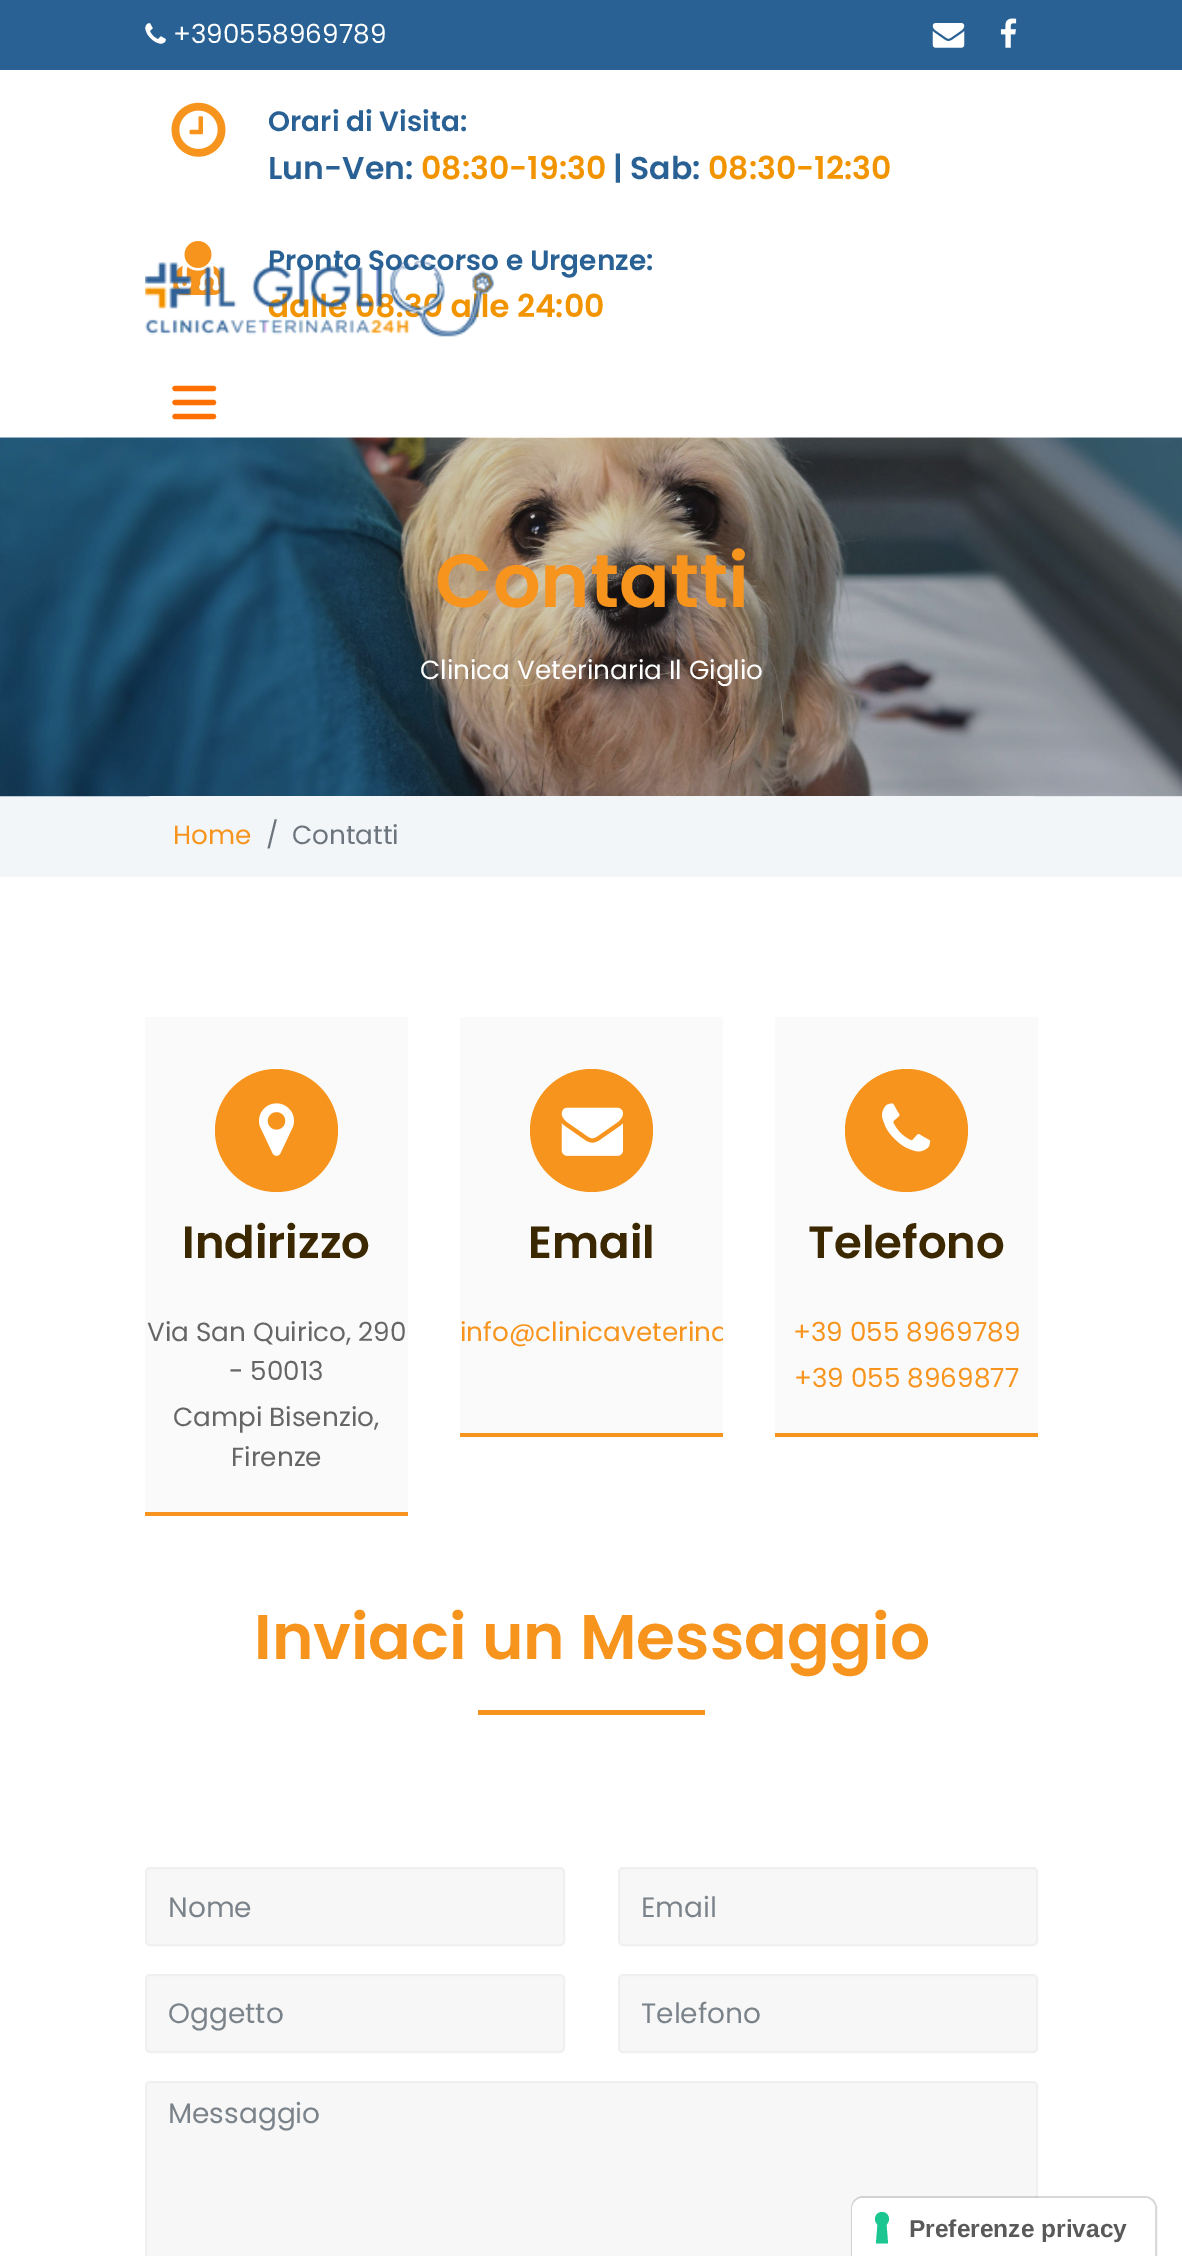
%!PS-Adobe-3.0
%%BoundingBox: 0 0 1182 2256
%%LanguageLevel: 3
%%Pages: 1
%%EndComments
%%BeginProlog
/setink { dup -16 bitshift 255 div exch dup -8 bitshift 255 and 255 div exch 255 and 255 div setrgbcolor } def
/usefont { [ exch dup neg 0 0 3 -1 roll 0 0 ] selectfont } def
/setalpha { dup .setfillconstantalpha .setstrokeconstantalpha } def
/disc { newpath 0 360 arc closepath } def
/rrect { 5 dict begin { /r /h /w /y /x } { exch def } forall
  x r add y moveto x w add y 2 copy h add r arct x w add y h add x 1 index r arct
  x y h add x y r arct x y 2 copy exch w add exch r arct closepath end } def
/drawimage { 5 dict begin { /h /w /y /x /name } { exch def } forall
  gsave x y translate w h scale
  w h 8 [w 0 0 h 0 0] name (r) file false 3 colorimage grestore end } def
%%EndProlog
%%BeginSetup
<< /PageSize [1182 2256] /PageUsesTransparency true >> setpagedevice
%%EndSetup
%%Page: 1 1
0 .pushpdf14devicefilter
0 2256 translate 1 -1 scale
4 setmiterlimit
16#FFFFFF setink
0 0 1182 2256 rectfill
16#296194 setink
0 0 1182 70 rectfill
(img1.raw) 145 23 21 21 drawimage
/Poppins-Regular 26.25 usefont
16#FFFFFF setink
173 43 moveto (+390558969789) show
(img2.raw) 932 23 33 25 drawimage
(img3.raw) 1000 18 17 30 drawimage
(img4.raw) 171 102 55 55 drawimage
/Poppins-SemiBold 28 usefont
16#296194 setink
268 131 moveto (Orari di Visita:) show
/Poppins-SemiBold 31.5 usefont
268 179 moveto (Lun-Ven:) show
16#F29400 setink
421 179 moveto (08:30-19:30) show
16#296194 setink
613 179 moveto (| Sab:) show
16#F29400 setink
708 179 moveto (08:30-12:30) show
(img5.raw) 173 241 50 54 drawimage
/Poppins-SemiBold 28 usefont
16#296194 setink
268 270 moveto (Pronto Soccorso e Urgenze:) show
/Poppins-SemiBold 31.5 usefont
16#F29400 setink
268 317 moveto (dalle 08:30 alle 24:00) show
(img6.raw) 145 260 349 77 drawimage
16#FF7000 setink
5.2 setlinewidth
1 setlinecap
175 388.5 moveto 213.5 388.5 lineto 175 402.5 moveto 213.5 402.5 lineto 175 416.5 moveto 213.5 416.5 lineto stroke
16#F2F6F9 setink
0 796 1182 81 rectfill
(img7.raw) 0 437 1182 360 drawimage
/Poppins-SemiBold 75 usefont
16#F7941D setink
435 607 moveto (Contatti) show
/Poppins-Regular 26.25 usefont
16#FFFFFF setink
420 679 moveto (Clinica Veterinaria Il Giglio) show
16#F2F6F9 setink
145 796 893 81 7 rrect fill
16#F7941D setink
173 844 moveto (Home) show
16#6C757D setink
266 844 moveto (/) show
292 844 moveto (Contatti) show
16#FAFAFA setink
145 1017 263 495 rectfill
16#F7941D setink
145 1512 263 4 rectfill
276.5 1130.5 61.5 disc fill
(img8.raw) 259 1103 35 53 drawimage
/Poppins-SemiBold 45 usefont
16#3C2800 setink
182 1258 moveto (Indirizzo) show
/Poppins-Regular 26.25 usefont
16#666666 setink
[
    [(Via San Quirico, 290) 147 1341]
    [(- 50013) 229 1380]
    [(Campi Bisenzio,) 173 1426]
    [(Firenze) 231 1466]
] { aload pop moveto show } forall
16#FAFAFA setink
460 1017 263 416 rectfill
16#F7941D setink
460 1433 263 4 rectfill
591.5 1130.5 61.5 disc fill
(img9.raw) 561 1107 62 49 drawimage
/Poppins-SemiBold 45 usefont
16#3C2800 setink
528 1258 moveto (Email) show
gsave
460 1017 263 416 rectclip
/Poppins-Regular 26.25 usefont
16#F7941D setink
460 1341 moveto (info@clinicaveterina) show
grestore
16#FAFAFA setink
775 1017 263 416 rectfill
16#F7941D setink
775 1433 263 4 rectfill
906.5 1130.5 61.5 disc fill
(img10.raw) 882 1103 49 49 drawimage
16#3C2800 setink
808 1258 moveto (Telefono) show
/Poppins-Regular 26.25 usefont
16#F7941D setink
793 1341 moveto (+39 055 8969789) show
794 1387 moveto (+39 055 8969877) show
/Poppins-SemiBold 63 usefont
254 1659 moveto (Inviaci un Messaggio) show
478 1710 227 5 rectfill
16#F7F7F7 setink
146 1868 418 77 4 rrect gsave fill grestore
16#F0F0F0 setink
2 setlinewidth
0 setlinecap
stroke
/Poppins-Regular 28 usefont
16#7B838A setink
168 1917 moveto (Nome) show
16#F7F7F7 setink
619 1868 418 77 4 rrect gsave fill grestore
16#F0F0F0 setink
stroke
16#7B838A setink
641 1917 moveto (Email) show
16#F7F7F7 setink
146 1975 418 77 4 rrect gsave fill grestore
16#F0F0F0 setink
stroke
16#7B838A setink
168 2023 moveto (Oggetto) show
16#F7F7F7 setink
619 1975 418 77 4 rrect gsave fill grestore
16#F0F0F0 setink
stroke
16#7B838A setink
641 2023 moveto (Telefono) show
16#F7F7F7 setink
147 2083 889 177 4 rrect fill
16#F0F0F0 setink
146 2082 891 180 4 rrect stroke
16#7B838A setink
168 2123 moveto (Messaggio) show
0.15 setalpha
16#000000 setink
863 2197 moveto 1145 2197 lineto 1151 2197 1156 2202 1156 2208 curveto 1156 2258 lineto 852 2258 lineto 852 2208 lineto 852 2202 857 2197 863 2197 curveto closepath stroke
1 setalpha
16#FFFFFF setink
863 2198 moveto 1144 2198 lineto 1150 2198 1155 2203 1155 2209 curveto 1155 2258 lineto 852 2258 lineto 852 2209 lineto 852 2203 857 2198 863 2198 curveto closepath fill
16#1CC691 setink
882 2212 moveto 888.5 2212 891.5 2220 886.5 2224.5 curveto 888 2243.5 lineto 876 2243.5 lineto 877.5 2224.5 lineto 872.5 2220 875.5 2212 882 2212 curveto closepath eofill
/LiberationSans-Bold 24.5 usefont
16#595959 setink
909 2237 moveto (Preferenze privacy) show
.poppdf14devicefilter showpage
%%EOF
